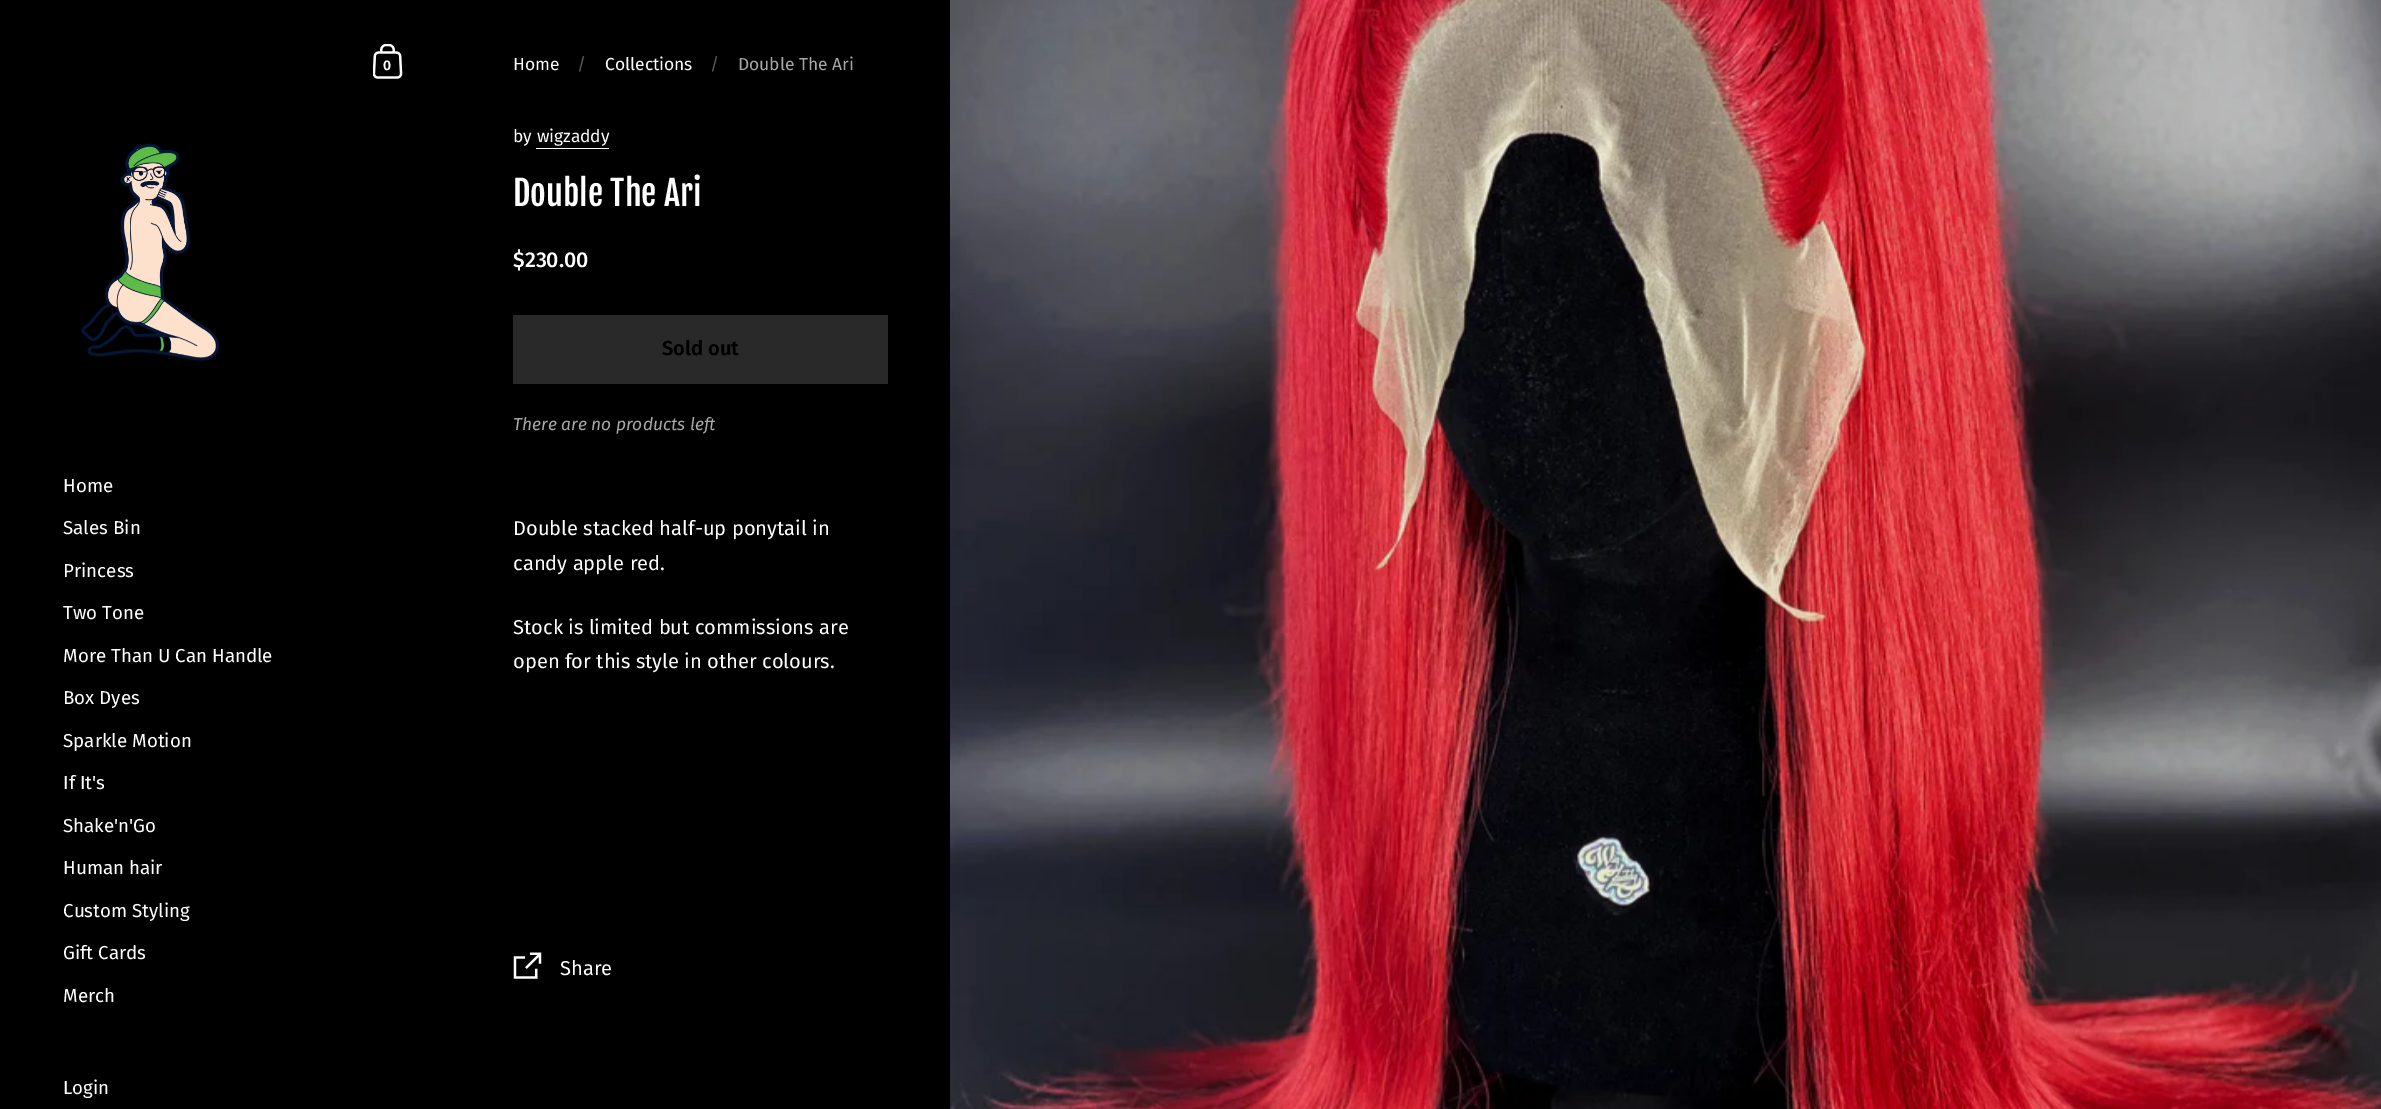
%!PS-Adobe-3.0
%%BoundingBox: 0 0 2381 1109
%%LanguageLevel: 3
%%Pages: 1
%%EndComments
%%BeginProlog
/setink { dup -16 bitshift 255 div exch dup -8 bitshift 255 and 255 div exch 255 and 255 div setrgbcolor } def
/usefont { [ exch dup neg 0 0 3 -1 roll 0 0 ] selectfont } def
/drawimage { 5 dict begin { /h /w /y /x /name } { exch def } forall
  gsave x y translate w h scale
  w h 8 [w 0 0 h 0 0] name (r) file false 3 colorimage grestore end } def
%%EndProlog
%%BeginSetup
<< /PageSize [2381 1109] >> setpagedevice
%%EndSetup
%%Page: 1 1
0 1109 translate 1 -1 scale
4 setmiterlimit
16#000000 setink
0 0 2381 1109 rectfill
(img1.raw) 373 44 30 35 drawimage
/FiraSans-SemiBold 14 usefont
16#FFFFFF setink
383 70 moveto (0) show
(img2.raw) 81 143 138 218 drawimage
/FiraSans-Regular 18.75 usefont
[
    [(Home) 63 492]
    [(Sales Bin) 63 534]
    [(Princess) 63 577]
    [(Two Tone) 63 619]
    [(More Than U Can Handle) 63 662]
    [(Box Dyes) 63 704]
    [(Sparkle Motion) 63 747]
    [(If It's) 63 789]
    [(Shake'n'Go) 63 832]
    [(Human hair) 63 874]
    [(Custom Styling) 63 917]
    [(Gift Cards) 63 959]
    [(Merch) 63 1002]
    [(Login) 63 1094]
] { aload pop moveto show } forall
/FiraSans-Regular 17.4 usefont
513 70 moveto (Home) show
16#5C5C5C setink
577 70 moveto (/) show
16#FFFFFF setink
605 70 moveto (Collections) show
16#5C5C5C setink
710 70 moveto (/) show
16#A8A8A8 setink
738 70 moveto (Double The Ari) show
16#FFFFFF setink
513 142 moveto (by wigzaddy) show
536 148 73 1 rectfill
/FjallaOne-Regular 34 usefont
513 206 moveto (Double The Ari) show
/FiraSans-Medium 21.5 usefont
513 267 moveto ($230.00) show
16#292929 setink
513 315 375 69 rectfill
/FiraSans-SemiBold 20.1 usefont
16#000000 setink
662 355 moveto (Sold out) show
/FiraSans-Italic 17.4 usefont
16#A8A8A8 setink
513 430 moveto (There are no products left) show
/FiraSans-Regular 20.1 usefont
16#FFFFFF setink
[
    [(Double stacked half-up ponytail in) 513 535]
    [(candy apple red.) 513 570]
    [(Stock is limited but commissions are) 513 634]
    [(open for this style in other colours.) 513 668]
] { aload pop moveto show } forall
(img3.raw) 513 952 29 27 drawimage
560 975 moveto (Share) show
(img4.raw) 950 0 1431 1109 drawimage
showpage
%%EOF
